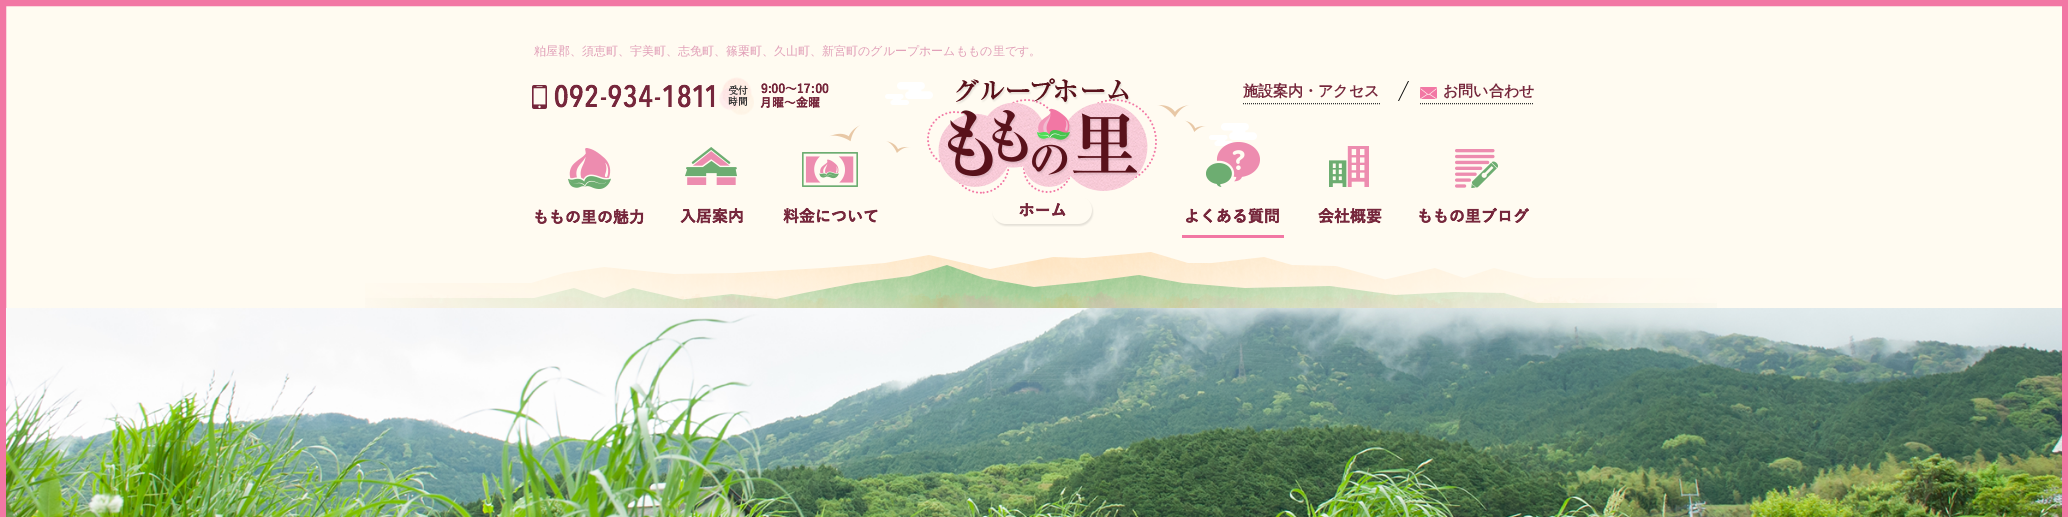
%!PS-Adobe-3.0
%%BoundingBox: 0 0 2068 517
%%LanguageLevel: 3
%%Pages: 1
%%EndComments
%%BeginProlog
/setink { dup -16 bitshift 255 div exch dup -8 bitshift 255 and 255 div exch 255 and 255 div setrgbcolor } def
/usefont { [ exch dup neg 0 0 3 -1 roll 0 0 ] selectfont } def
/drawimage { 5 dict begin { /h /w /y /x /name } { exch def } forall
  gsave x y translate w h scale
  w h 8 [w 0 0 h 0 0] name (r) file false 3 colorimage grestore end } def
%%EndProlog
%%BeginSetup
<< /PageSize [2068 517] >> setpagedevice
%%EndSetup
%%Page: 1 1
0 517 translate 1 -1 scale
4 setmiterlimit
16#FFFBF1 setink
0 0 2068 517 rectfill
16#F277A4 setink
6 setlinewidth
3 3 2062 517 rectstroke
(img1.raw) 365 82 1352 226 drawimage
/WenQuanYiZenHei-Medium 12 usefont
16#E2A1B9 setink
534 55 moveto (粕屋郡、須恵町、宇美町、志免町、篠栗町、久山町、新宮町のグループホームももの里です。) show
(img2.raw) 535 148 109 77 drawimage
(img3.raw) 680 147 63 77 drawimage
(img4.raw) 783 152 95 72 drawimage
(img5.raw) 927 78 230 149 drawimage
16#F277A4 setink
1182 235 102 3 rectfill
(img6.raw) 1186 142 93 82 drawimage
(img7.raw) 1318 146 64 78 drawimage
(img8.raw) 1419 149 110 74 drawimage
(img9.raw) 532 77 297 38 drawimage
(img10.raw) 1398 81 11 20 drawimage
/WenQuanYiZenHei-Bold 15 usefont
16#76273C setink
1243 96 moveto (施設案内・アクセス) show
16#333333 setink
1 setlinewidth
[1 1] 0 setdash
1243 103.5 moveto 1380 103.5 lineto stroke
(img11.raw) 1420 87 17 12 drawimage
16#76273C setink
1443 96 moveto (お問い合わせ) show
16#333333 setink
1420 103.5 moveto 1534 103.5 lineto stroke
(img12.raw) 6 308 2056 209 drawimage
showpage
%%EOF
